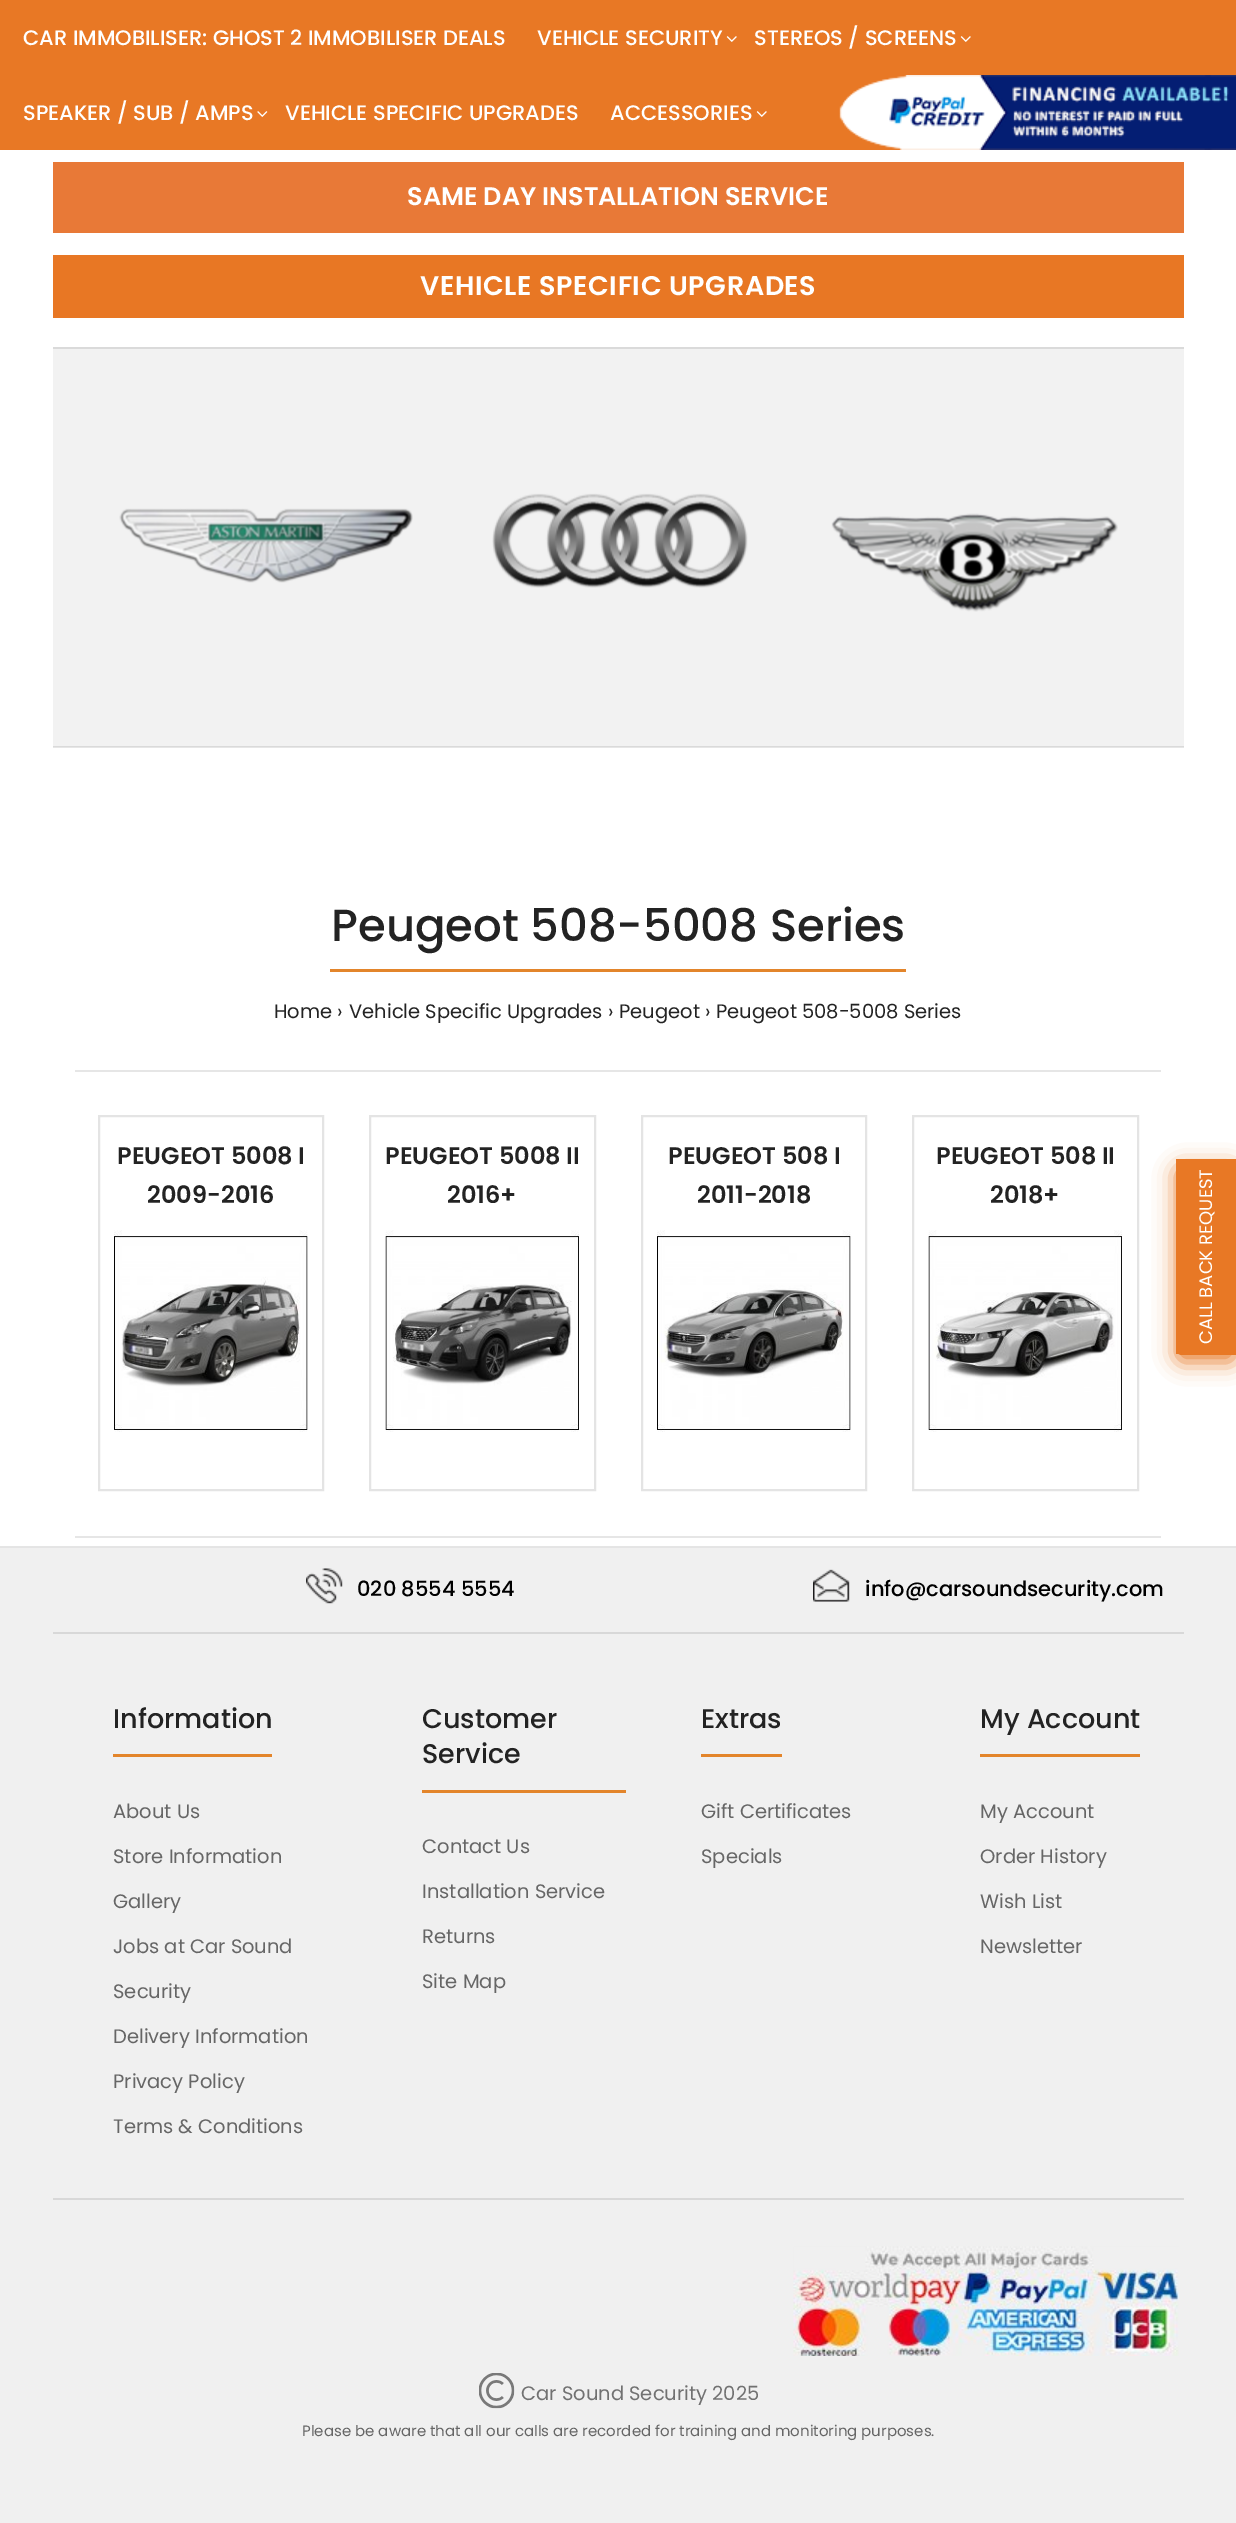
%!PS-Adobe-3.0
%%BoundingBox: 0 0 1236 2523
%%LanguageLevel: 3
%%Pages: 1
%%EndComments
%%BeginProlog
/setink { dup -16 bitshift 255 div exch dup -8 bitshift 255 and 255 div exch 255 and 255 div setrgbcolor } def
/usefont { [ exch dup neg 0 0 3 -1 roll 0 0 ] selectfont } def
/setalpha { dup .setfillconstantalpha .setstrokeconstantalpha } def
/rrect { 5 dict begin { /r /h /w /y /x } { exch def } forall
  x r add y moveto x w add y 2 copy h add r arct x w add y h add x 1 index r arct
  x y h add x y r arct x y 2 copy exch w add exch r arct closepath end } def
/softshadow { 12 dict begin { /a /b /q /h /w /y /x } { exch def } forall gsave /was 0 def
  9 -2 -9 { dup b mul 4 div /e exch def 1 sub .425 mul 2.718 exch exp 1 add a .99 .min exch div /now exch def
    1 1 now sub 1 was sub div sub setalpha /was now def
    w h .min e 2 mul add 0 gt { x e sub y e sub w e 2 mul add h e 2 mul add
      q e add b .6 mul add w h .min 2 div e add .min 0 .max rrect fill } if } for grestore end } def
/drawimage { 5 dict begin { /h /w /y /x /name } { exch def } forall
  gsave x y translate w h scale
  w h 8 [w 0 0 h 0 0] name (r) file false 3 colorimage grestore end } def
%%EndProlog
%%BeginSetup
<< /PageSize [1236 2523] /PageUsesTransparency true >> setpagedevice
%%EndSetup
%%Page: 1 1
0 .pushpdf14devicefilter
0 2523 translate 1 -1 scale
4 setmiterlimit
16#FFFFFF setink
0 0 1236 2523 rectfill
16#E6E6E6 setink
53 747 1131 1 rectfill
16#E87825 setink
0 0 1236 150 rectfill
/Poppins-Medium 21 usefont
16#FFFFFF setink
23 45 moveto (CAR IMMOBILISER: GHOST 2 IMMOBILISER DEALS) show
537 45 moveto (VEHICLE SECURITY) show
(img1.raw) 726 36 11 6 drawimage
754 45 moveto (STEREOS / SCREENS) show
(img1.raw) 960 36 11 6 drawimage
23 120 moveto (SPEAKER / SUB / AMPS) show
(img2.raw) 257 111 11 6 drawimage
285 120 moveto (VEHICLE SPECIFIC UPGRADES) show
610 120 moveto (ACCESSORIES) show
(img1.raw) 756 111 11 6 drawimage
(img3.raw) 839 75 397 75 drawimage
16#E87937 setink
53 162 1131 71 rectfill
/Poppins-SemiBold 25.5 usefont
16#FFFFFF setink
407 205 moveto (SAME DAY INSTALLATION SERVICE) show
16#E87724 setink
53 255 1131 63 rectfill
/Poppins-SemiBold 27 usefont
16#FFFFFF setink
420 295 moveto 0.6 0 (VEHICLE SPECIFIC UPGRADES) ashow
[
    [53 347 1131 2 16#DADADA]
    [53 349 1131 397 16#F2F2F2]
    [53 746 1131 1 16#DADADA]
] { aload pop setink rectfill } forall
(img4.raw) 119 508 294 75 drawimage
(img5.raw) 492 493 256 95 drawimage
(img6.raw) 831 513 287 99 drawimage
16#E3852B setink
330 969 576 3 rectfill
/Poppins-Medium 45 usefont
16#232323 setink
331 941 moveto (Peugeot 508-5008 Series) show
/Poppins-Regular 19.5 usefont
[
    [(Home ›) 274 1018]
    [(Vehicle Specific Upgrades ›) 349 1018]
    [(Peugeot ›) 619 1018]
    [(Peugeot 508-5008 Series) 716 1018]
] { aload pop moveto show } forall
16#E6E6E6 setink
75 1070 1086 2 rectfill
75 1536 1086 2 rectfill
16#E4E4E4 setink
2 setlinewidth
99 1116 224 374 rectstroke
/Poppins-SemiBold 24 usefont
16#232323 setink
117 1164 moveto (PEUGEOT 5008 I) show
147 1203 moveto (2009-2016) show
(img7.raw) 114 1230 194 202 drawimage
16#E4E4E4 setink
370 1116 225 374 rectstroke
16#232323 setink
385 1164 moveto (PEUGEOT 5008 II) show
447 1203 moveto (2016+) show
(img8.raw) 385 1230 194 202 drawimage
16#E4E4E4 setink
642 1116 224 374 rectstroke
16#232323 setink
668 1164 moveto (PEUGEOT 508 I) show
697 1203 moveto (2011-2018) show
(img9.raw) 657 1230 194 202 drawimage
16#E4E4E4 setink
913 1116 225 374 rectstroke
16#232323 setink
936 1164 moveto (PEUGEOT 508 II) show
990 1203 moveto (2018+) show
(img10.raw) 928 1230 194 202 drawimage
16#F0F0F0 setink
0 1547 1236 976 rectfill
(img11.raw) 0 1546 1236 2 drawimage
(img12.raw) 306 1568 37 36 drawimage
/Poppins-Medium 21 usefont
16#000000 setink
357 1596 moveto (020 8554 5554) show
(img13.raw) 813 1569 37 33 drawimage
865 1596 moveto (info@carsoundsecurity.com) show
16#D8D8D8 setink
53 1632 1131 2 rectfill
16#E3852B setink
113 1754 159 3 rectfill
/Poppins-Medium 27 usefont
16#232323 setink
113 1728 moveto (Information) show
/Poppins-Regular 19.5 usefont
16#666666 setink
[
    [(About Us) 113 1818]
    [(Store Information) 113 1863]
    [(Gallery) 113 1908]
    [(Jobs at Car Sound) 113 1953]
    [(Security) 113 1998]
    [(Delivery Information) 113 2043]
    [(Privacy Policy) 113 2088]
    [(Terms & Conditions) 113 2133]
] { aload pop moveto show } forall
16#E3852B setink
422 1790 204 3 rectfill
/Poppins-Medium 27 usefont
16#232323 setink
422 1728 moveto (Customer) show
422 1763 moveto (Service) show
/Poppins-Regular 19.5 usefont
16#666666 setink
[
    [(Contact Us) 422 1853]
    [(Installation Service) 422 1898]
    [(Returns) 422 1943]
    [(Site Map) 422 1988]
] { aload pop moveto show } forall
16#E3852B setink
701 1754 81 3 rectfill
/Poppins-Medium 27 usefont
16#232323 setink
701 1728 moveto (Extras) show
/Poppins-Regular 19.5 usefont
16#666666 setink
701 1818 moveto (Gift Certificates) show
701 1863 moveto (Specials) show
16#E3852B setink
980 1754 160 3 rectfill
/Poppins-Medium 27 usefont
16#232323 setink
980 1728 moveto (My Account) show
/Poppins-Regular 19.5 usefont
16#666666 setink
[
    [(My Account) 980 1818]
    [(Order History) 980 1863]
    [(Wish List) 980 1908]
    [(Newsletter) 980 1953]
] { aload pop moveto show } forall
16#D8D8D8 setink
53 2198 1131 2 rectfill
(img14.raw) 793 2246 386 110 drawimage
(img15.raw) 479 2373 36 36 drawimage
16#717171 setink
521 2400 moveto (Car Sound Security 2025) show
/Poppins-Regular 15 usefont
16#666666 setink
302 2436 moveto (Please be aware that all our calls are recorded for training and monitoring purposes.) show
16#E87E2F setink
1176 1167 60 195 6 11 1 softshadow
16#E87825 setink
1182 1160 moveto 1236 1160 lineto 1236 1355 lineto 1182 1355 lineto 1178.5 1355 1176 1352.5 1176 1349 curveto 1176 1166 lineto 1176 1162.5 1178.5 1160 1182 1160 curveto closepath fill
1176 1159 60 195 rectfill
/Poppins-Regular 18 usefont
16#FFFFFF setink
gsave 1212 1344 translate -90 rotate 0 0 moveto (CALL BACK REQUEST) show grestore
.poppdf14devicefilter showpage
%%EOF
